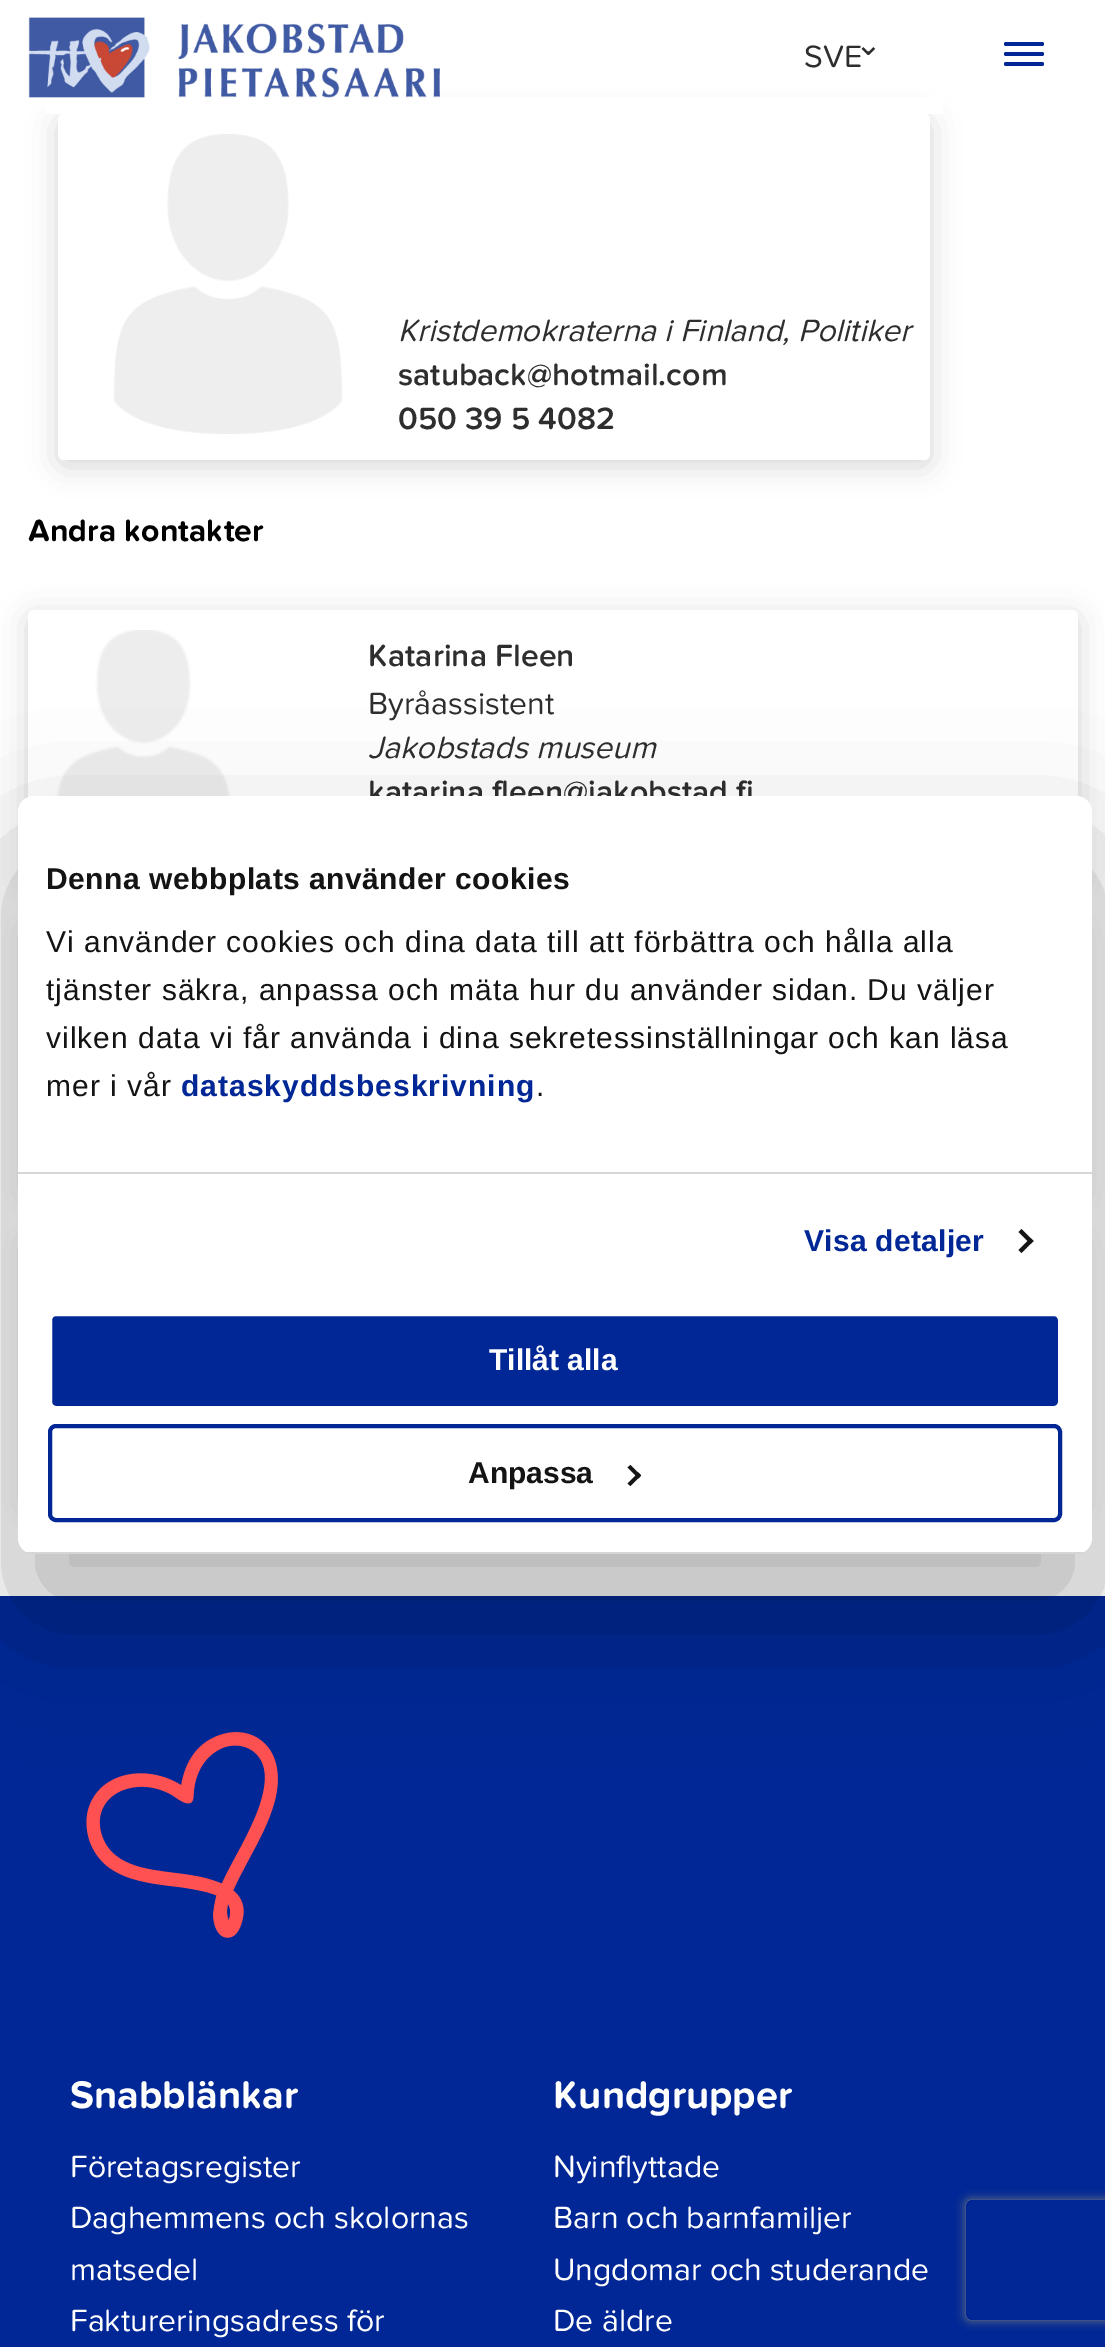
%!PS-Adobe-3.0
%%BoundingBox: 0 0 1105 2347
%%LanguageLevel: 3
%%Pages: 1
%%EndComments
%%BeginProlog
/setink { dup -16 bitshift 255 div exch dup -8 bitshift 255 and 255 div exch 255 and 255 div setrgbcolor } def
/usefont { [ exch dup neg 0 0 3 -1 roll 0 0 ] selectfont } def
/setalpha { dup .setfillconstantalpha .setstrokeconstantalpha } def
/rrect { 5 dict begin { /r /h /w /y /x } { exch def } forall
  x r add y moveto x w add y 2 copy h add r arct x w add y h add x 1 index r arct
  x y h add x y r arct x y 2 copy exch w add exch r arct closepath end } def
/softshadow { 12 dict begin { /a /b /q /h /w /y /x } { exch def } forall gsave /was 0 def
  9 -2 -9 { dup b mul 4 div /e exch def 1 sub .425 mul 2.718 exch exp 1 add a .99 .min exch div /now exch def
    1 1 now sub 1 was sub div sub setalpha /was now def
    w h .min e 2 mul add 0 gt { x e sub y e sub w e 2 mul add h e 2 mul add
      q e add b .6 mul add w h .min 2 div e add .min 0 .max rrect fill } if } for grestore end } def
/drawimage { 5 dict begin { /h /w /y /x /name } { exch def } forall
  gsave x y translate w h scale
  w h 8 [w 0 0 h 0 0] name (r) file false 3 colorimage grestore end } def
%%EndProlog
%%BeginSetup
<< /PageSize [1105 2347] /PageUsesTransparency true >> setpagedevice
%%EndSetup
%%Page: 1 1
0 .pushpdf14devicefilter
0 2347 translate 1 -1 scale
4 setmiterlimit
16#FFFFFF setink
0 0 1105 2347 rectfill
16#000000 setink
58 120 872 346 6 15 0.16 softshadow
16#FFFFFF setink
45 97 898 17 rectfill
(img1.raw) 28 17 412 81 drawimage
/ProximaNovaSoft-Regular 32 usefont
16#2E2E2E setink
804 67 moveto (SVE) show
/DejaVuSans-Regular 32 usefont
855 55 moveto (⌄) show
16#002795 setink
1004 42 40 4 2 rrect fill
1004 52 40 4 2 rrect fill
1004 62 40 4 2 rrect fill
16#FFFFFF setink
58 114 872 346 6 rrect fill
(img2.raw) 113 134 230 300 drawimage
/ProximaNovaSoft-Italic 32 usefont
16#2E2E2E setink
398 341 moveto (Kristdemokraterna i Finland, Politiker) show
/ProximaNovaSoft-SemiBold 32 usefont
398 385 moveto (satuback@hotmail.com) show
398 429 moveto (050 39 5 4082) show
/ProximaNovaSoft-Bold 32 usefont
16#000000 setink
28 541 moveto (Andra kontakter) show
28 616 1050 270 6 15 0.16 softshadow
16#FFFFFF setink
28 610 1050 270 6 rrect fill
(img3.raw) 55 630 176 166 drawimage
/ProximaNovaSoft-SemiBold 32 usefont
16#2E2E2E setink
368 666 moveto (Katarina Fleen) show
/ProximaNovaSoft-Regular 32 usefont
368 714 moveto (Byråassistent) show
/ProximaNovaSoft-Italic 32 usefont
368 758 moveto (Jakobstads museum) show
/ProximaNovaSoft-SemiBold 32 usefont
368 802 moveto (katarina.fleen@jakobstad.fi) show
16#000000 setink
28 928 1050 270 6 15 0.16 softshadow
28 1240 1050 270 6 15 0.16 softshadow
16#002795 setink
0 1596 1105 751 rectfill
(img4.raw) 86 1732 192 206 drawimage
16#000000 setink
18 860 1074 758 16 68 0.3 softshadow
16#FFFFFF setink
18 796 1074 758 16 rrect fill
16#D6D6D6 setink
18 1172 1074 2 rectfill
/LiberationSans-Bold 30 usefont
16#141414 setink
46 889 moveto 0.5 0 (Denna webbplats använder cookies) ashow
/LiberationSans-Regular 30 usefont
46 952 moveto 1 0 (Vi använder cookies och dina data till att förbättra och hålla alla) ashow
46 1000 moveto 1 0 (tjänster säkra, anpassa och mäta hur du använder sidan. Du väljer) ashow
46 1048 moveto 1 0 (vilken data vi får använda i dina sekretessinställningar och kan läsa) ashow
46 1096 moveto 1 0 (mer i vår) ashow
/LiberationSans-Bold 30 usefont
16#002795 setink
181 1096 moveto 1 0 (dataskyddsbeskrivning) ashow
/LiberationSans-Regular 30 usefont
16#141414 setink
536 1096 moveto 1 0 (.) ashow
/LiberationSans-Bold 30 usefont
16#002795 setink
804 1251 moveto 0.25 0 (Visa detaljer) ashow
16#141414 setink
1021.5 1229 moveto 1033.5 1241 lineto 1030.5 1244 lineto 1018.5 1232 lineto closepath fill
1030.5 1238 moveto 1033.5 1241 lineto 1021.5 1253 lineto 1018.5 1250 lineto closepath fill
gsave
18 796 1074 758 16 rrect clip newpath
16#D6D6D6 setink
18 1552 1074 2 rectfill
grestore
16#002795 setink
50 1314 1010 94 6 rrect gsave fill grestore
16#FFFFFF setink
4 setlinewidth
stroke
489 1370 moveto (Tillåt alla) show
16#002795 setink
50 1426 1010 94 6 rrect stroke
16#141414 setink
468 1483 moveto (Anpassa) show
630.5 1465 moveto 641 1475.5 lineto 638.5 1478.5 lineto 627.5 1467.5 lineto closepath fill
638.5 1472.5 moveto 641 1475.5 lineto 630.5 1486 lineto 627.5 1483.5 lineto closepath fill
/ProximaNovaSoft-Bold 40 usefont
16#FFFFFF setink
70 2108 moveto (Snabblänkar) show
/ProximaNovaSoft-Regular 32 usefont
[
    [(Företagsregister) 70 2177]
    [(Daghemmens och skolornas) 70 2228]
    [(matsedel) 70 2280]
    [(Faktureringsadress för) 70 2331]
] { aload pop moveto show } forall
/ProximaNovaSoft-Bold 40 usefont
553 2108 moveto (Kundgrupper) show
/ProximaNovaSoft-Regular 32 usefont
[
    [(Nyinflyttade) 553 2177]
    [(Barn och barnfamiljer) 553 2228]
    [(Ungdomar och studerande) 553 2280]
    [(De äldre) 553 2331]
] { aload pop moveto show } forall
gsave
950 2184 moveto 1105 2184 lineto 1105 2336 lineto 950 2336 lineto closepath 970 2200 moveto 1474 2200 lineto 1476 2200 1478 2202 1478 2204 curveto 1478 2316 lineto 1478 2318 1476 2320 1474 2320 curveto 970 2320 lineto 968 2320 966 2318 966 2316 curveto 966 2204 lineto 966 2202 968 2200 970 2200 curveto closepath eoclip newpath
16#808080 setink
966 2200 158 120 4 5 1 softshadow
grestore
.poppdf14devicefilter showpage
%%EOF
